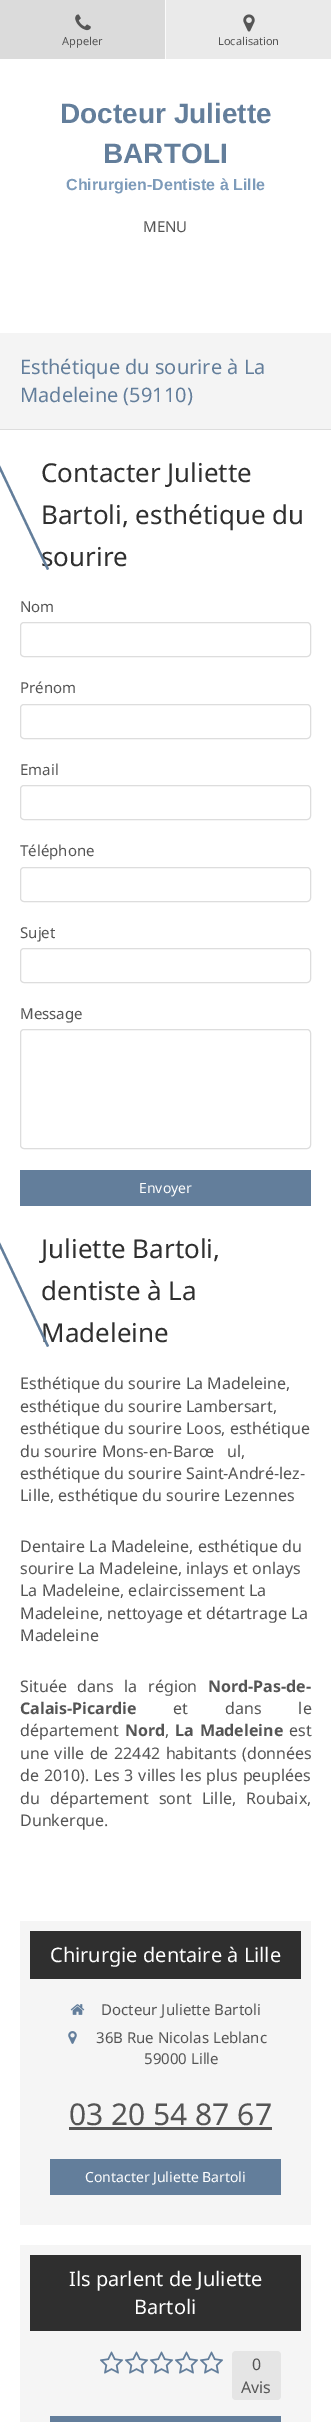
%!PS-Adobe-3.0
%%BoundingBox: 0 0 331 2422
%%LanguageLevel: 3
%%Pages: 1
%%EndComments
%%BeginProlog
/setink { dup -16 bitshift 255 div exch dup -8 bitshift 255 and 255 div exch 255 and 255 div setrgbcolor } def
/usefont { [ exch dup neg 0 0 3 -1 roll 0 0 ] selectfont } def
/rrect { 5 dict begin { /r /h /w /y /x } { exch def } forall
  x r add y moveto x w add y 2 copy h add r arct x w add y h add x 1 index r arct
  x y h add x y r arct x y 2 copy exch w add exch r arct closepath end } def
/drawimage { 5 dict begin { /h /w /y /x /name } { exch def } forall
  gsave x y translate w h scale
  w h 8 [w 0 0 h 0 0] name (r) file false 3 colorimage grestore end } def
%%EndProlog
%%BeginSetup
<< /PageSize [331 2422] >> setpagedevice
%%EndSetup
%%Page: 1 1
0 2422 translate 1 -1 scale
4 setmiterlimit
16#FFFFFF setink
0 0 331 2422 rectfill
16#EAEAEA setink
166 0 165 59 rectfill
16#DBDBDB setink
0 0 165 59 rectfill
(img1.raw) 75 14 16 17 drawimage
/NotoSans-Regular 11 usefont
16#555555 setink
62 45 moveto (Appeler) show
16#FBFBFB setink
165 0 1 59 rectfill
(img2.raw) 243 14 12 18 drawimage
16#555555 setink
218 45 moveto (Localisation) show
/LiberationSans-Bold 28 usefont
16#637E9B setink
60 123 moveto (Docteur Juliette) show
103 163 moveto (BARTOLI) show
/LiberationSans-Bold 16 usefont
16#7D9BBA setink
66 190 moveto (Chirurgien-Dentiste à Lille) show
/NotoSans-Regular 15 usefont
16#555555 setink
143 232 moveto (MENU) show
16#F4F4F4 setink
0 333 331 96 rectfill
16#DDDDDD setink
0 429 331 1 rectfill
/NotoSans-Regular 20 usefont
16#637E9B setink
20 374 moveto (Esthétique du sourire à La) show
20 402 moveto (Madeleine \(59110\)) show
/NotoSans-Regular 26 usefont
16#2F2F2F setink
[
    [(Contacter Juliette) 41 482]
    [(Bartoli, esthétique du) 41 524]
    [(sourire) 41 566]
] { aload pop moveto show } forall
16#637E9B setink
-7 456 moveto -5 455 lineto 49 569 lineto 47 570 lineto closepath fill
/NotoSans-Regular 15 usefont
16#555555 setink
20 612 moveto (Nom) show
16#DDDDDD setink
20.5 622.5 290 34 3.5 rrect stroke
16#555555 setink
20 693 moveto (Prénom) show
16#DDDDDD setink
20.5 704.5 290 34 3.5 rrect stroke
16#555555 setink
20 775 moveto (Email) show
16#DDDDDD setink
20.5 785.5 290 34 3.5 rrect stroke
16#555555 setink
20 856 moveto (Téléphone) show
16#DDDDDD setink
20.5 867.5 290 34 3.5 rrect stroke
16#555555 setink
20 938 moveto (Sujet) show
16#DDDDDD setink
20.5 948.5 290 34 3.5 rrect stroke
16#555555 setink
20 1019 moveto (Message) show
16#DDDDDD setink
20.5 1029.5 290 119 3.5 rrect stroke
16#637E9B setink
20 1170 291 36 rectfill
/NotoSans-Regular 14 usefont
16#FFFFFF setink
139 1193 moveto (Envoyer) show
/NotoSans-Regular 26 usefont
16#2F2F2F setink
[
    [(Juliette Bartoli,) 41 1258]
    [(dentiste à La) 41 1300]
    [(Madeleine) 41 1342]
] { aload pop moveto show } forall
16#637E9B setink
-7 1233 moveto -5 1232 lineto 49 1346 lineto 47 1347 lineto closepath fill
/NotoSans-Regular 16 usefont
16#555555 setink
[
    [(Esthétique du sourire La Madeleine,) 20 1389]
    [(esthétique du sourire Lambersart,) 20 1412]
    [(esthétique du sourire Loos, esthétique) 20 1434]
    [(du sourire Mons-en-Barœ) 20 1457]
    [(ul,) 227 1457]
    [(esthétique du sourire Saint-André-lez-) 20 1479]
    [(Lille, esthétique du sourire Lezennes) 20 1501]
    [(Dentaire La Madeleine, esthétique du) 20 1552]
    [(sourire La Madeleine, inlays et onlays) 20 1574]
    [(La Madeleine, eclaircissement La) 20 1596]
    [(Madeleine, nettoyage et détartrage La) 20 1619]
    [(Madeleine) 20 1641]
] { aload pop moveto show } forall
20 1692 moveto 6.5 0 32 (Située dans la région) widthshow
/NotoSans-Bold 16 usefont
208 1692 moveto (Nord-Pas-de-) show
20 1714 moveto (Calais-Picardie) show
/NotoSans-Regular 16 usefont
173 1714 moveto 33 0 32 (et dans le) widthshow
20 1736 moveto (département) show
/NotoSans-Bold 16 usefont
125 1736 moveto (Nord) show
/NotoSans-Regular 16 usefont
165 1736 moveto (,) show
/NotoSans-Bold 16 usefont
175 1736 moveto 2 0 32 (La Madeleine) widthshow
/NotoSans-Regular 16 usefont
289 1736 moveto (est) show
20 1759 moveto 1.5 0 32 (une ville de 22442 habitants \(données) widthshow
20 1781 moveto 0.75 0 32 (de 2010\). Les 3 villes les plus peuplées) widthshow
20 1804 moveto 6 0 32 (du département sont Lille, Roubaix,) widthshow
20 1826 moveto (Dunkerque.) show
16#F5F5F5 setink
20 1921 291 304 rectfill
16#2F2F2F setink
30 1931 271 48 rectfill
/NotoSans-Regular 20 usefont
16#FFFFFF setink
50 1962 moveto (Chirurgie dentaire à Lille) show
(img3.raw) 70 2004 15 11 drawimage
/NotoSans-Regular 15 usefont
16#555555 setink
101 2015 moveto (Docteur Juliette Bartoli) show
(img4.raw) 68 2031 9 13 drawimage
96 2043 moveto (36B Rue Nicolas Leblanc) show
144 2064 moveto (59000 Lille) show
/NotoSans-Regular 30 usefont
69 2125 moveto (03 20 54 87 67) show
69 2127 203 3 rectfill
16#637E9B setink
50 2159 231 36 rectfill
/NotoSans-Regular 14 usefont
16#FFFFFF setink
85 2182 moveto (Contacter Juliette Bartoli) show
16#F5F5F5 setink
20 2245 291 177 rectfill
16#2F2F2F setink
30 2255 271 76 rectfill
/NotoSans-Regular 20 usefont
16#FFFFFF setink
69 2286 moveto (Ils parlent de Juliette) show
134 2314 moveto (Bartoli) show
(img5.raw) 100 2351 23 23 drawimage
(img5.raw) 125 2351 23 23 drawimage
(img5.raw) 150 2351 23 23 drawimage
(img5.raw) 175 2351 23 23 drawimage
(img5.raw) 200 2351 23 23 drawimage
16#E5E5E5 setink
232 2351 49 49 4 rrect fill
/NotoSans-Regular 16 usefont
16#555555 setink
252 2370 moveto (0) show
241 2393 moveto (Avis) show
16#637E9B setink
50 2416 231 6 rectfill
showpage
%%EOF
